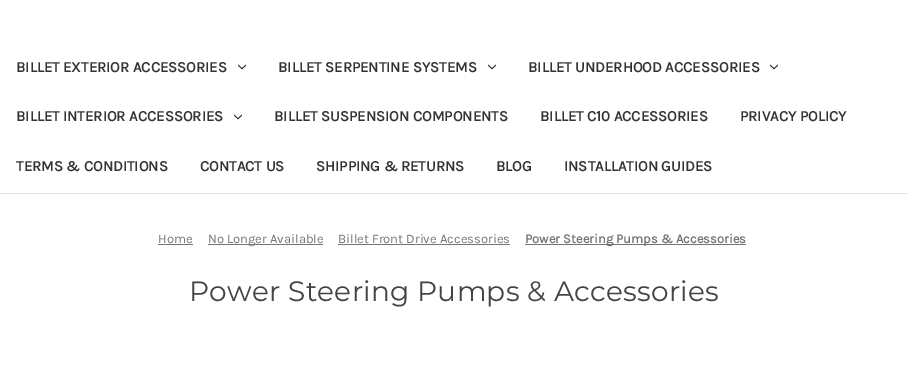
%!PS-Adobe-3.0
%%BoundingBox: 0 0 908 367
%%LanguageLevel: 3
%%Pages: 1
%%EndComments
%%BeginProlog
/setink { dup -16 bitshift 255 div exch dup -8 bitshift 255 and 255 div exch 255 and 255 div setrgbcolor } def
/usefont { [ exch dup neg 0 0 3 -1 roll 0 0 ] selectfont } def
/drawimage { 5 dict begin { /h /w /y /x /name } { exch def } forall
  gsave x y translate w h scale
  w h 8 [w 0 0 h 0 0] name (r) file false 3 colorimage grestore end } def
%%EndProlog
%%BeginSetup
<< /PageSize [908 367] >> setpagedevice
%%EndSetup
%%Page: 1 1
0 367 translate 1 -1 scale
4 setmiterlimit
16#FFFFFF setink
0 0 908 367 rectfill
16#E5E5E5 setink
0 193 908 1 rectfill
/Karla-Bold 15 usefont
16#333333 setink
16 72 moveto (BILLET EXTERIOR ACCESSORIES) show
(img1.raw) 238 64 8 6 drawimage
278 72 moveto (BILLET SERPENTINE SYSTEMS) show
(img1.raw) 488 64 8 6 drawimage
528 72 moveto (BILLET UNDERHOOD ACCESSORIES) show
(img1.raw) 770 64 8 6 drawimage
16 121 moveto (BILLET INTERIOR ACCESSORIES) show
(img1.raw) 234 114 8 6 drawimage
[
    [(BILLET SUSPENSION COMPONENTS) 274 121]
    [(BILLET C10 ACCESSORIES) 540 121]
    [(PRIVACY POLICY) 740 121]
    [(TERMS & CONDITIONS) 16 171]
    [(CONTACT US) 200 171]
    [(SHIPPING & RETURNS) 316 171]
    [(BLOG) 496 171]
    [(INSTALLATION GUIDES) 564 171]
] { aload pop moveto show } forall
/Karla-Regular 13 usefont
16#757575 setink
158 243 moveto (Home) show
158 244 35 1 rectfill
208 244 115 1 rectfill
208 243 moveto (No Longer Available) show
338 243 moveto (Billet Front Drive Accessories) show
338 244 172 1 rectfill
525 244 221 1 rectfill
/Karla-Bold 13 usefont
525 243 moveto (Power Steering Pumps & Accessories) show
/Montserrat-Regular 28 usefont
16#444444 setink
189 301 moveto 0.25 0 (Power Steering Pumps & Accessories) ashow
showpage
%%EOF
